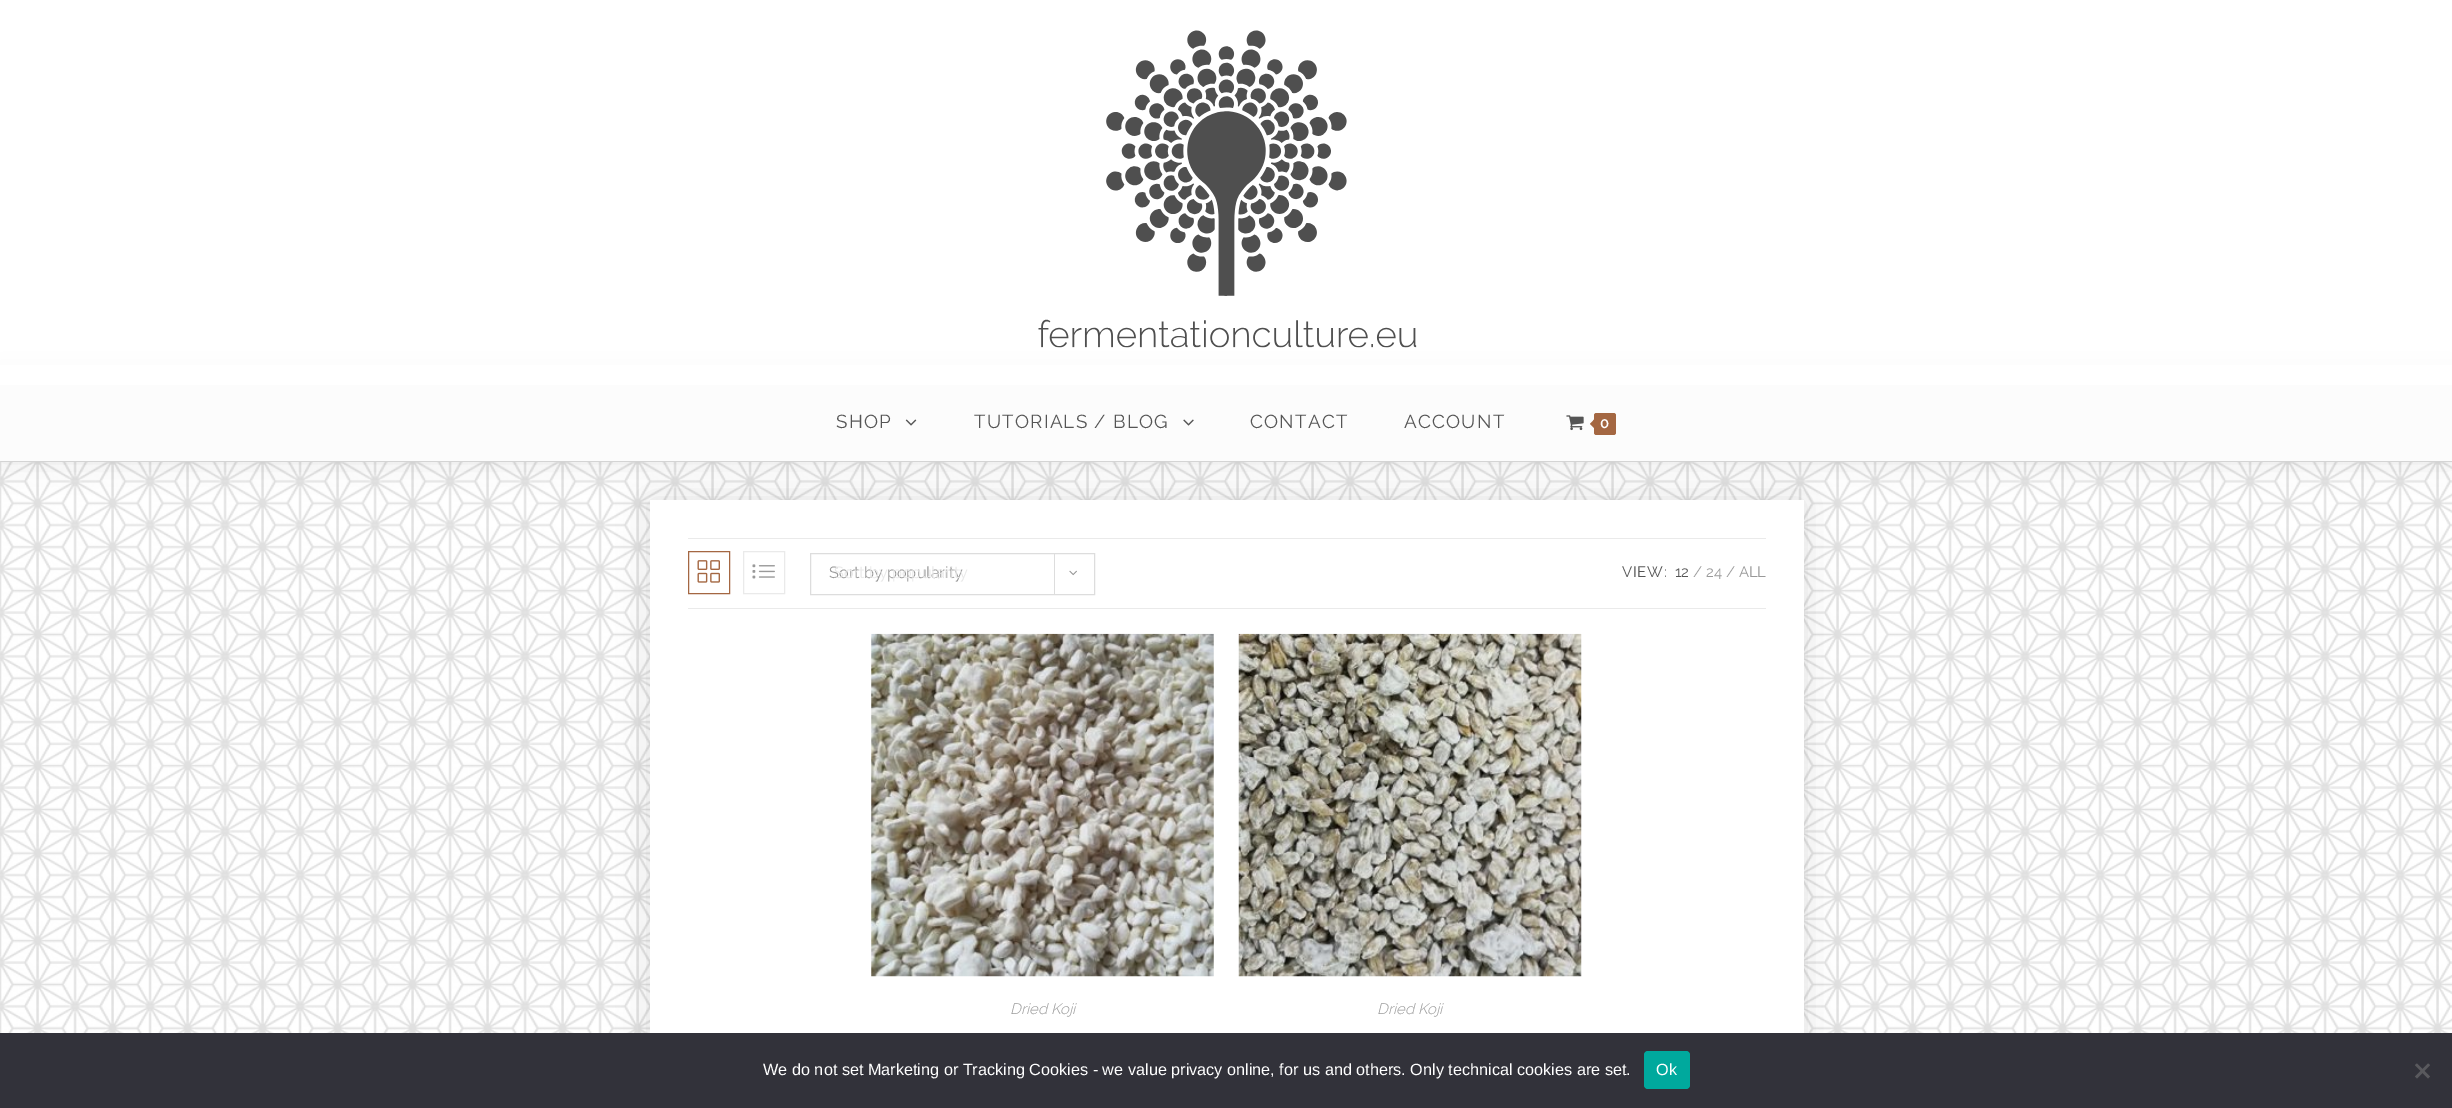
%!PS-Adobe-3.0
%%BoundingBox: 0 0 2452 1108
%%LanguageLevel: 3
%%Pages: 1
%%EndComments
%%BeginProlog
/setink { dup -16 bitshift 255 div exch dup -8 bitshift 255 and 255 div exch 255 and 255 div setrgbcolor } def
/usefont { [ exch dup neg 0 0 3 -1 roll 0 0 ] selectfont } def
/setalpha { dup .setfillconstantalpha .setstrokeconstantalpha } def
/rrect { 5 dict begin { /r /h /w /y /x } { exch def } forall
  x r add y moveto x w add y 2 copy h add r arct x w add y h add x 1 index r arct
  x y h add x y r arct x y 2 copy exch w add exch r arct closepath end } def
/softshadow { 12 dict begin { /a /b /q /h /w /y /x } { exch def } forall gsave /was 0 def
  9 -2 -9 { dup b mul 4 div /e exch def 1 sub .425 mul 2.718 exch exp 1 add a .99 .min exch div /now exch def
    1 1 now sub 1 was sub div sub setalpha /was now def
    w h .min e 2 mul add 0 gt { x e sub y e sub w e 2 mul add h e 2 mul add
      q e add b .6 mul add w h .min 2 div e add .min 0 .max rrect fill } if } for grestore end } def
/drawimage { 5 dict begin { /h /w /y /x /name } { exch def } forall
  gsave x y translate w h scale
  w h 8 [w 0 0 h 0 0] name (r) file false 3 colorimage grestore end } def
%%EndProlog
%%BeginSetup
<< /PageSize [2452 1108] /PageUsesTransparency true >> setpagedevice
%%EndSetup
%%Page: 1 1
0 .pushpdf14devicefilter
0 1108 translate 1 -1 scale
4 setmiterlimit
16#FFFFFF setink
0 0 2452 1108 rectfill
(img1.raw) 0 462 2452 571 drawimage
16#000000 setink
650 500 1154 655 0 15.5 0.12 softshadow
16#E0E0E0 setink
0 461 2452 1 rectfill
16#FFFFFF setink
650 500 1154 533 rectfill
16#000000 setink
0 385 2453 76 0 15 0.11 softshadow
16#FFFFFF setink
0 365 2452 20 rectfill
(img2.raw) 1038 30 379 318 drawimage
16#FCFCFC setink
0 385 2452 76 rectfill
/Raleway-Thin 18.75 usefont
16#555555 setink
836 428 moveto 1.25 0 (SHOP) ashow
(img3.raw) 905 419 12 7 drawimage
974 428 moveto 1.25 0 (TUTORIALS / BLOG) ashow
(img4.raw) 1183 419 11 7 drawimage
1250 428 moveto 1.25 0 (CONTACT) ashow
1404 428 moveto 1.25 0 (ACCOUNT) ashow
(img5.raw) 1566 415 18 16 drawimage
16#A46742 setink
1594 413 22 22 2.5 rrect fill
1596 417.5 moveto 1596 430 lineto 1590 424 lineto closepath fill
/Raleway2-Thin 15 usefont
16#FFFFFF setink
1600 428 moveto 1.25 0 (0) ashow
16#EAEAEA setink
688 538 1078 1 rectfill
688 608 1078 1 rectfill
16#A46742 setink
688.5 551.5 41 42 rectstroke
(img6.raw) 697 560 23 23 drawimage
16#EAEAEA setink
743.5 551.5 41 42 rectstroke
(img7.raw) 752 564 23 15 drawimage
16#DDDDDD setink
810.5 553.5 284 41 rectstroke
/Raleway-Thin 16.25 usefont
16#999999 setink
829 578 moveto (Sort by popularity) show
16#DDDDDD setink
1054 554 1 40 rectfill
(img8.raw) 1069 570 8 6 drawimage
16#E9E9E9 setink
834 578 moveto (Sort by popularity) show
/Raleway-Thin 15 usefont
16#555555 setink
1622 577 moveto 0.75 0 (VIEW:) ashow
1675 577 moveto (12) show
16#999999 setink
1693 577 moveto (/ 24 / ALL) show
(img9.raw) 871 633 343 344 drawimage
/Raleway-ThinItalic 15 usefont
1010 1014 moveto (Dried Koji) show
(img10.raw) 1238 633 344 344 drawimage
1377 1014 moveto (Dried Koji) show
16#32323A setink
0 1033 2452 75 rectfill
/LiberationSans-Regular 16.25 usefont
16#FFFFFF setink
763 1075 moveto (We do not set Marketing or Tracking Cookies - we value privacy online, for us and others. Only technical cookies are set.) show
16#00A99D setink
1644 1051 46 38 4 rrect fill
16#FFFFFF setink
1656 1075 moveto (Ok) show
16#59595D setink
2428 1063.5 moveto 2430 1065 lineto 2417 1078.5 lineto 2415 1076.5 lineto closepath fill
2415 1065 moveto 2417 1063.5 lineto 2430 1076.5 lineto 2428 1078.5 lineto closepath fill
.poppdf14devicefilter showpage
%%EOF
